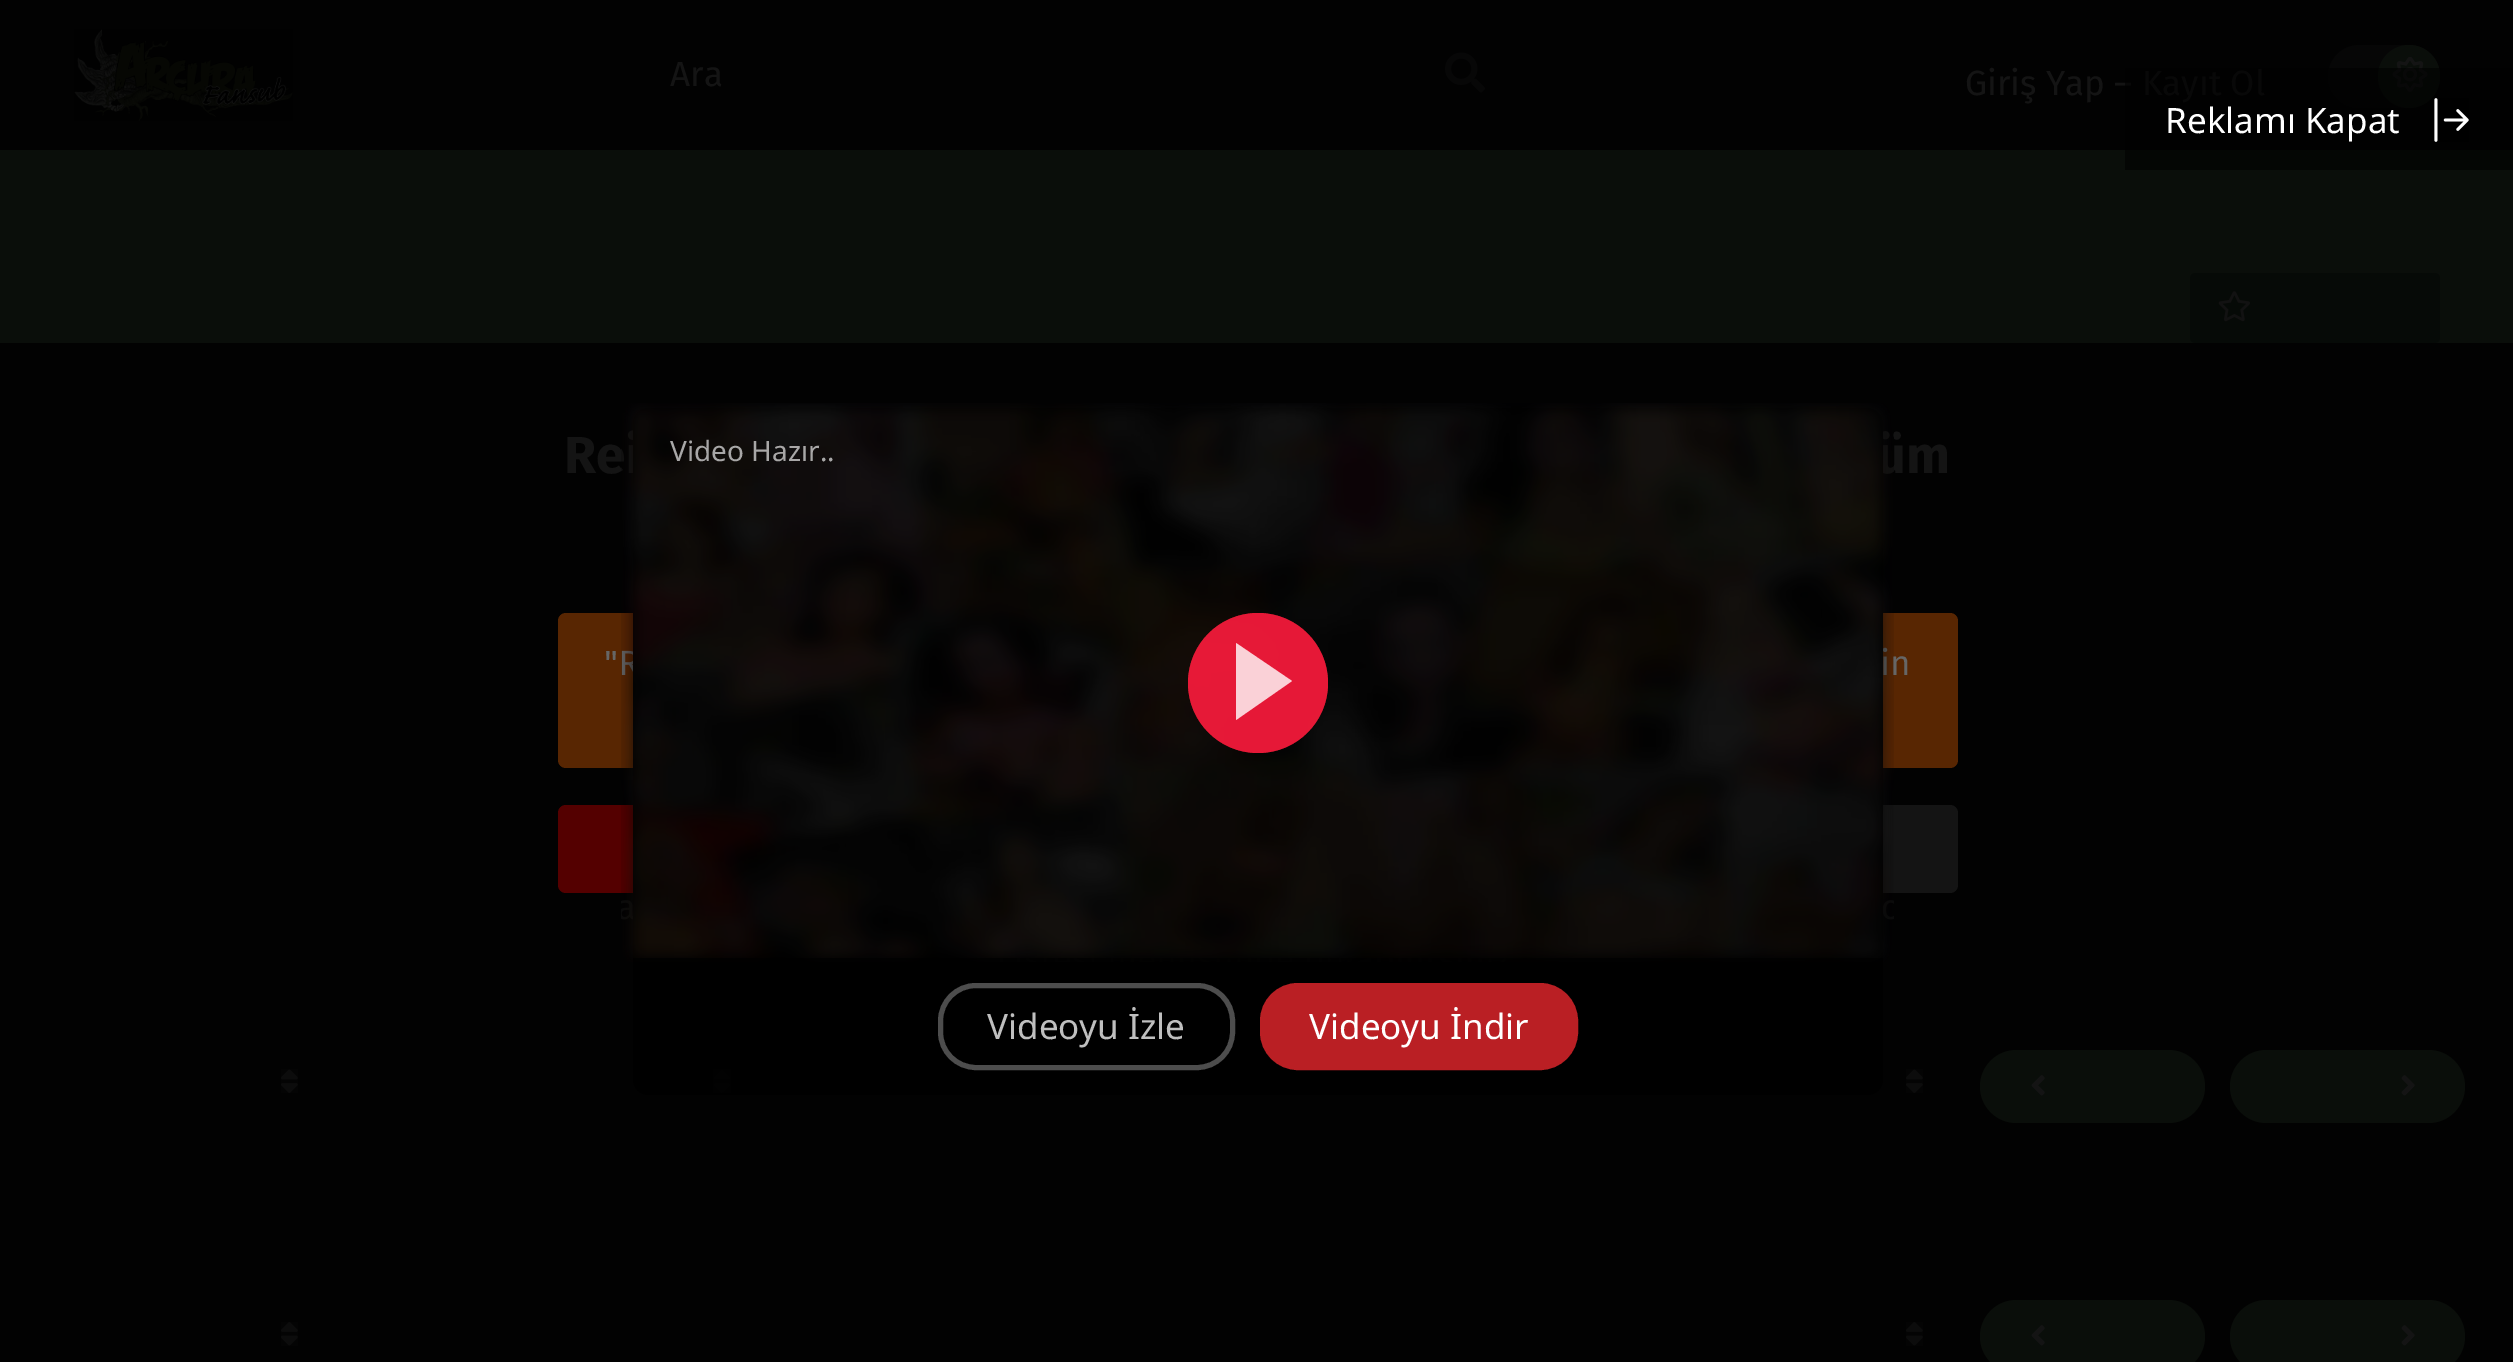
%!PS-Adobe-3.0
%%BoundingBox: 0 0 2513 1362
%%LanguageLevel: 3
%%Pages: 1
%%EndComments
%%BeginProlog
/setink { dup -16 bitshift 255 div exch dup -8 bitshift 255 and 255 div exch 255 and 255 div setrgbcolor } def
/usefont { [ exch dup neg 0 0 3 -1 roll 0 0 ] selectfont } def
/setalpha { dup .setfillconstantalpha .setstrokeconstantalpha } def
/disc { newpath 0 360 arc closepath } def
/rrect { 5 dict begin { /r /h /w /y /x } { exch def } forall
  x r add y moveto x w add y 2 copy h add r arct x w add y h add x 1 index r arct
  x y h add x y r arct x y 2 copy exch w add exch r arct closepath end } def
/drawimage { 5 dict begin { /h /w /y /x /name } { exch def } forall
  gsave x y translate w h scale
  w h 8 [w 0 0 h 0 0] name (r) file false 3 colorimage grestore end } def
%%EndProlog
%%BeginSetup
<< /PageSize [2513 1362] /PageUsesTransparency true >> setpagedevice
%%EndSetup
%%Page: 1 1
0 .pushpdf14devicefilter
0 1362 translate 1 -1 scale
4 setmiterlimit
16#020202 setink
0 0 2513 1362 rectfill
(img1.raw) 74 29 219 92 drawimage
/FiraSans-Regular 35 usefont
16#141414 setink
670 86 moveto (Ara) show
(img2.raw) 1445 52 40 41 drawimage
1965 95 moveto (Giriş Yap – Kayıt Ol) show
16#060606 setink
2328 45 112 63 31.5 rrect fill
16#0A0E0A setink
2378 45 62 63 31 rrect fill
(img3.raw) 2392 56 36 36 drawimage
0 150 2513 193 rectfill
0.6 setalpha
16#000000 setink
2125 68 388 102 rectfill
/NotoSans-Regular 35 usefont
1 setalpha
16#FFFFFF setink
2165 133 moveto (Reklamı Kapat) show
(img4.raw) 2434 98 35 44 drawimage
/FiraSans-Bold 52 usefont
16#141414 setink
564 473 moveto (Rei) show
1876 473 moveto (üm) show
16#582602 setink
558 613 1400 155 8 rrect fill
/FiraSans-Regular 35 usefont
16#666666 setink
604 675 moveto ("R) show
1880 675 moveto (in) show
16#540000 setink
558 805 675 88 8 rrect fill
16#141414 setink
1283 805 675 88 8 rrect fill
16#000000 setink
648 408 moveto 1868 408 lineto 1876.5 408 1883 414.5 1883 423 curveto 1883 958 lineto 633 958 lineto 633 423 lineto 633 414.5 639.5 408 648 408 curveto closepath fill
(img5.raw) 621 403 1273 559 drawimage
/NotoSans-Regular 28 usefont
16#A8A7A7 setink
670 461 moveto (Video Hazır..) show
0.8 setalpha
16#BA1F24 setink
1258 683 70 disc fill
16#FA183D setink
1258 683 70 disc fill
1 setalpha
16#FAD1D7 setink
1236 720 moveto 1236 643 lineto 1292 681 lineto closepath fill
(img8.raw) 713 1069 18 24 drawimage
0.85 setalpha
16#000000 setink
633 958 moveto 1883 958 lineto 1883 1080 lineto 1883 1088.5 1876.5 1095 1868 1095 curveto 648 1095 lineto 639.5 1095 633 1088.5 633 1080 curveto closepath fill
1 setalpha
16#4D4D4D setink
5 setlinewidth
940.5 985.5 292 82 35.5 rrect stroke
/NotoSans-Regular 35 usefont
16#BFBFBF setink
987 1039 moveto (Videoyu İzle) show
16#BA1F24 setink
1262.5 985.5 313 82 35.5 rrect gsave fill grestore
stroke
16#FFFFFF setink
1309 1039 moveto (Videoyu İndir) show
16#060A07 setink
2190 273 250 70 5 rrect fill
(img6.raw) 2218 291 32 31 drawimage
(img7.raw) 281 1069 17 24 drawimage
(img7.raw) 1906 1069 17 24 drawimage
16#0A0E0A setink
1980 1050 225 73 36.5 rrect fill
(img9.raw) 2031 1075 14 21 drawimage
2230 1050 235 73 36.5 rrect fill
(img10.raw) 2401 1075 14 21 drawimage
(img11.raw) 281 1322 17 24 drawimage
(img11.raw) 1906 1322 17 24 drawimage
1980 1300 225 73 36.5 rrect fill
(img9.raw) 2031 1325 14 21 drawimage
2230 1300 235 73 36.5 rrect fill
(img10.raw) 2401 1325 14 21 drawimage
.poppdf14devicefilter showpage
%%EOF
